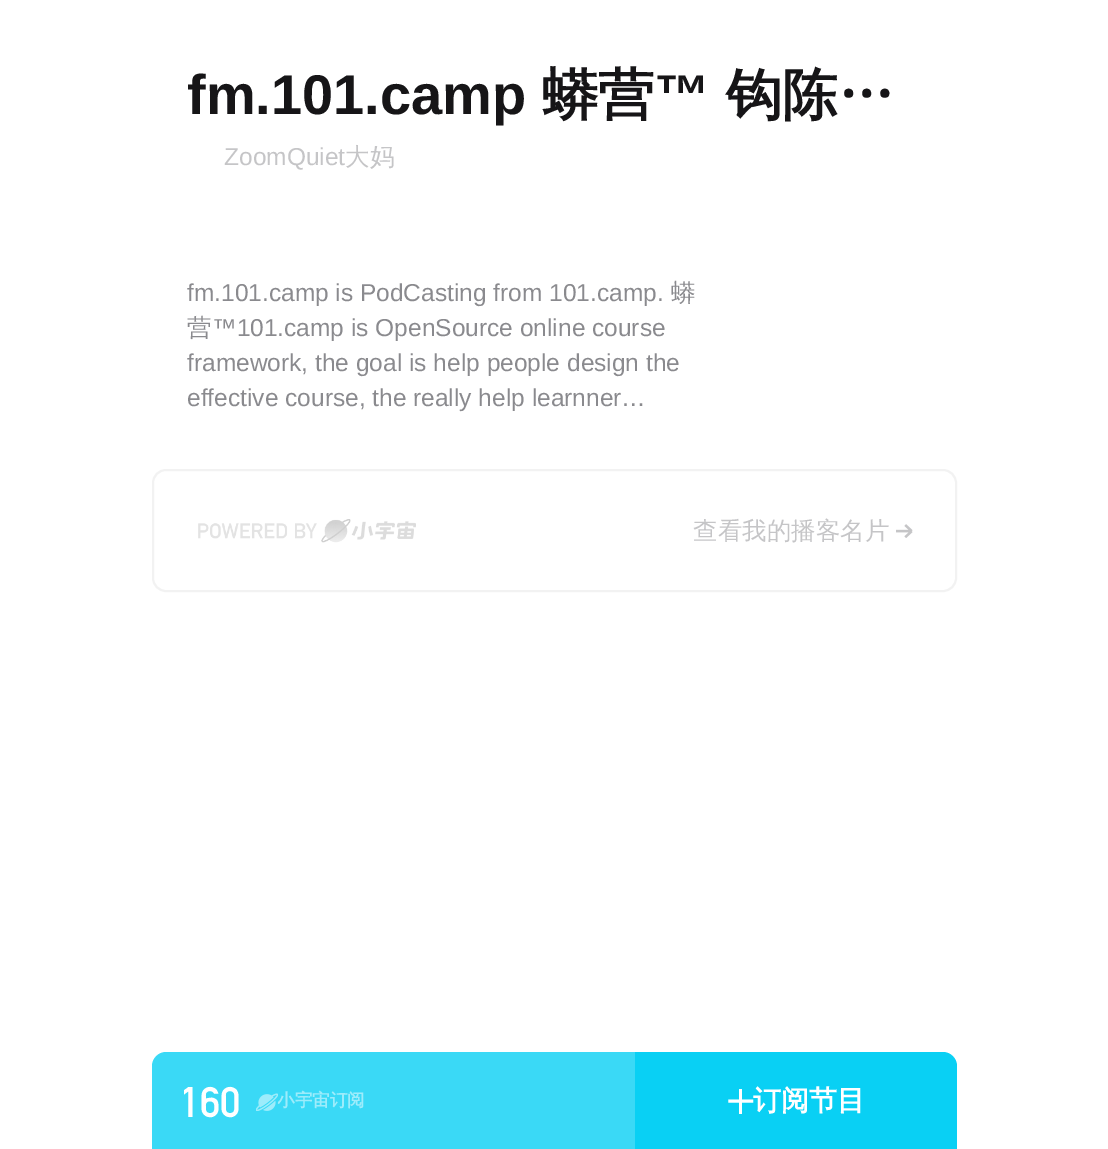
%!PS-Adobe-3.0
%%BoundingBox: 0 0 1108 1149
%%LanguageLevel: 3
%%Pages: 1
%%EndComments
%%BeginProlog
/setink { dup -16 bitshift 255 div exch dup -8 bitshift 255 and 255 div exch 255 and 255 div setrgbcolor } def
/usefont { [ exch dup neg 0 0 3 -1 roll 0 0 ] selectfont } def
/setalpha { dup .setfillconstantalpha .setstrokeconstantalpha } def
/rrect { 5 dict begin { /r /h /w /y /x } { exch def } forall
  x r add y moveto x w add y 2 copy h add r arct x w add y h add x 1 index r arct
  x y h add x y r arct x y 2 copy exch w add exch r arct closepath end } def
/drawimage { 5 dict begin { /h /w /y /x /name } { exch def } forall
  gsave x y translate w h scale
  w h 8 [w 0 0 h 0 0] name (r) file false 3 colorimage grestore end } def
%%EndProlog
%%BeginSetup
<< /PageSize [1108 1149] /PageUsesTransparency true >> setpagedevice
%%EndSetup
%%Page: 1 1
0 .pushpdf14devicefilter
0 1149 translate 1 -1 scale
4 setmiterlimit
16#FFFFFF setink
0 0 1108 1149 rectfill
/LiberationSans-Bold 56 usefont
16#161517 setink
187 114 moveto (fm.101.camp) show
/WenQuanYiZenHei-Bold 56 usefont
542 114 moveto (蟒营) show
/LiberationSans-Bold 56 usefont
654 114 moveto (™) show
/WenQuanYiZenHei-Bold 56 usefont
726 114 moveto (钩陈…) show
/LiberationSans-Regular 24.5 usefont
16#C5C5C7 setink
224 165 moveto (ZoomQuiet) show
/WenQuanYiZenHei-Medium 24.5 usefont
345 165 moveto (大妈) show
/LiberationSans-Regular 24.5 usefont
16#8A8A8E setink
187 301 moveto (fm.101.camp is PodCasting from 101.camp.) show
/WenQuanYiZenHei-Medium 24.5 usefont
671 301 moveto (蟒) show
187 336 moveto (营) show
/LiberationSans-Regular 24.5 usefont
[
    [(™101.camp is OpenSource online course) 212 336]
    [(framework, the goal is help people design the) 187 371]
    [(effective course, the really help learnner…) 187 406]
] { aload pop moveto show } forall
16#F2F2F2 setink
2 setlinewidth
153 470 803 121 13 rrect stroke
(img1.raw) 198 519 218 24 drawimage
/WenQuanYiZenHei-Medium 24.5 usefont
16#C5C5C7 setink
693 539 moveto (查看我的播客名片) show
(img2.raw) 896 524 17 14 drawimage
16#09D0F4 setink
166 1052 moveto 943 1052 lineto 950.5 1052 957 1058.5 957 1066 curveto 957 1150 lineto 152 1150 lineto 152 1066 lineto 152 1058.5 158.5 1052 166 1052 curveto closepath fill
0.2 setalpha
16#FFFFFF setink
152 1052 483 97 rectfill
/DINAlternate-Bold 42 usefont
1 setalpha
180 1117 moveto (160) show
/WenQuanYiZenHei-Bold 17.5 usefont
16#9DECFB setink
277 1106 moveto (小宇宙订阅) show
(img3.raw) 256 1093 22 18 drawimage
16#FFFFFF setink
739 1089 3 25 rectfill
3.1 setlinewidth
2 setlinecap
1 setlinejoin
730 1101 moveto 751.5 1101 lineto stroke
/WenQuanYiZenHei-Bold 28 usefont
753 1110 moveto (订阅节目) show
.poppdf14devicefilter showpage
%%EOF
